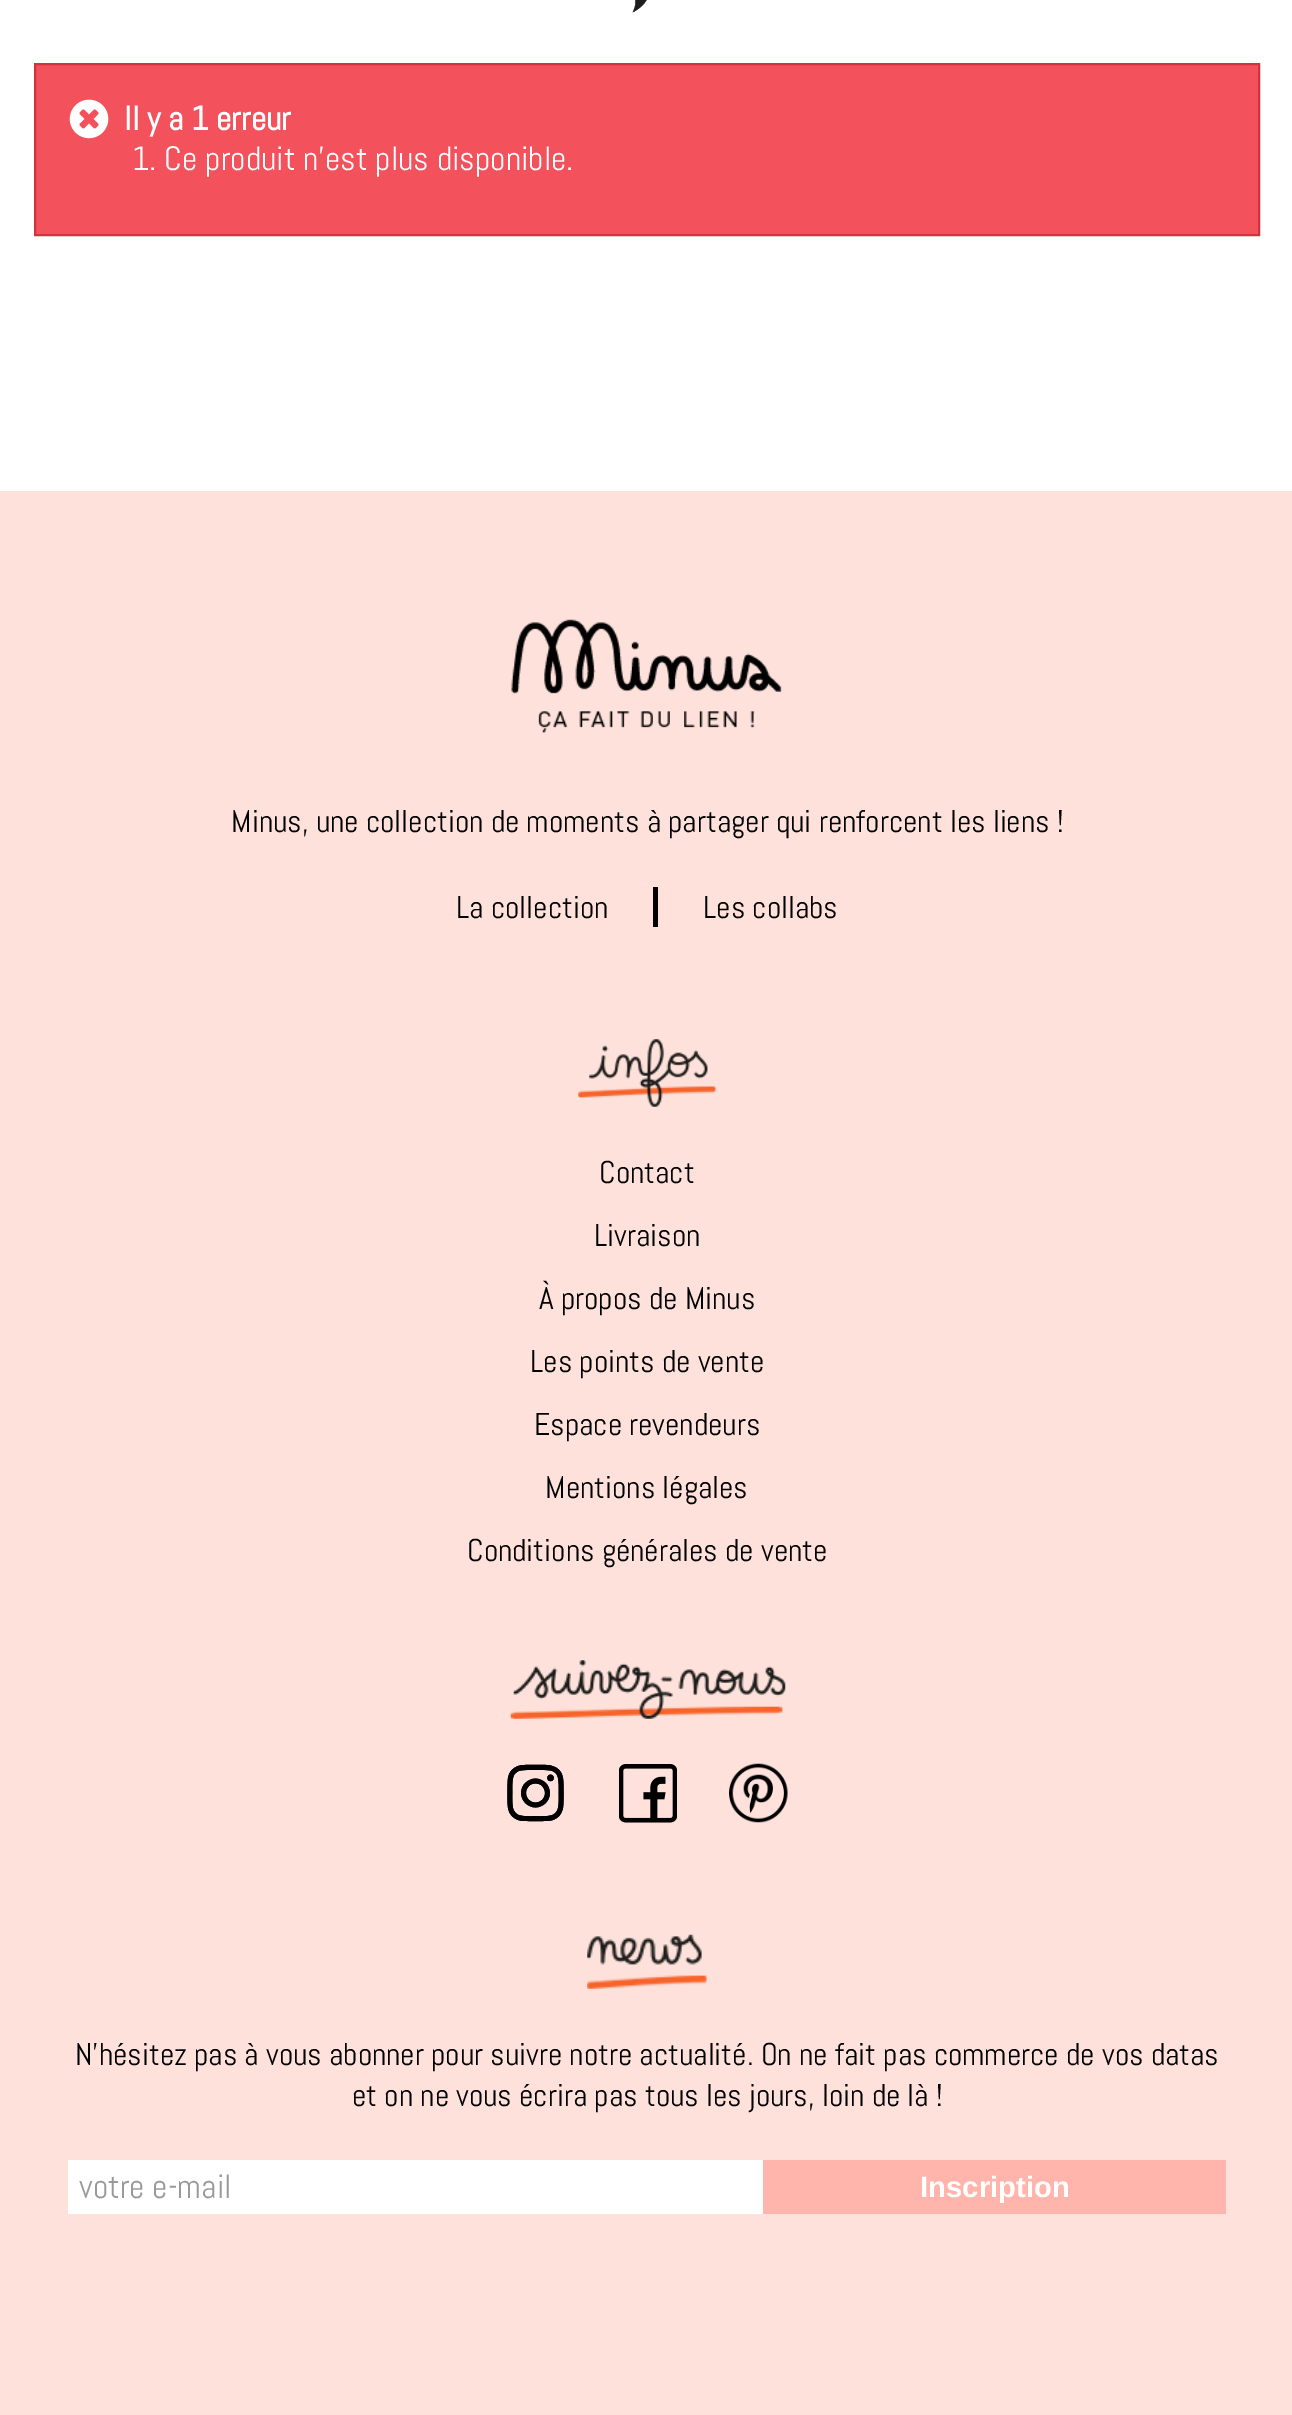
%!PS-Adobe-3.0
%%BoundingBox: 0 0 1292 2415
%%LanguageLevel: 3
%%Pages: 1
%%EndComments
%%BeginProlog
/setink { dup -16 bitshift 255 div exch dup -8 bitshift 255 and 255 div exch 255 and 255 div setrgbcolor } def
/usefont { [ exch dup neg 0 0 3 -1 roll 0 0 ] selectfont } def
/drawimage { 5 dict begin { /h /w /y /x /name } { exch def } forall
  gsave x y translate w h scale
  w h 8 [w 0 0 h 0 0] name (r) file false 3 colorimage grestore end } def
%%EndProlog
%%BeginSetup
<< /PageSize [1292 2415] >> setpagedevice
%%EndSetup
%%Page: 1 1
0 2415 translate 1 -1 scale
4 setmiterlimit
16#FFFFFF setink
0 0 1292 2415 rectfill
(img1.raw) 632 0 15 13 drawimage
16#F3515C setink
35 64 moveto 1259 64 lineto 1259 235 lineto 35 235 lineto closepath gsave fill grestore
16#D4323D setink
2 setlinewidth
stroke
(img2.raw) 69 99 40 40 drawimage
/Abel-Bold 33.75 usefont
16#FFFFFF setink
124 130 moveto (Il y a 1 erreur) show
/Abel-Regular 33.75 usefont
132 170 moveto (1. Ce produit n'est plus disponible.) show
16#FEE1DB setink
0 491 1292 1924 rectfill
(img3.raw) 511 619 271 114 drawimage
/Abel-Regular 31.5 usefont
16#000000 setink
231 832 moveto (Minus, une collection de moments à partager qui renforcent les liens !) show
653 887 5 40 rectfill
456 918 moveto (La collection) show
703 918 moveto (Les collabs) show
(img4.raw) 578 1039 138 68 drawimage
[
    [(Contact) 599 1183]
    [(Livraison) 594 1246]
    [(À propos de Minus) 539 1309]
    [(Les points de vente) 530 1372]
    [(Espace revendeurs) 534 1435]
    [(Mentions légales) 545 1498]
    [(Conditions générales de vente) 467 1561]
] { aload pop moveto show } forall
(img5.raw) 510 1660 276 59 drawimage
(img6.raw) 507 1764 57 58 drawimage
(img7.raw) 619 1764 58 59 drawimage
(img8.raw) 729 1763 59 60 drawimage
(img9.raw) 587 1934 120 55 drawimage
75 2065 moveto (N'hésitez pas à vous abonner pour suivre notre actualité. On ne fait pas commerce de vos datas) show
352 2106 moveto (et on ne vous écrira pas tous les jours, loin de là !) show
16#FFFFFF setink
68 2160 695 54 rectfill
/Abel-Regular 33.75 usefont
16#999999 setink
79 2198 moveto (votre e-mail) show
16#FFB5AB setink
763 2160 463 54 rectfill
/LiberationSans-Bold 29.25 usefont
16#FFFFFF setink
920 2197 moveto (Inscription) show
showpage
%%EOF
